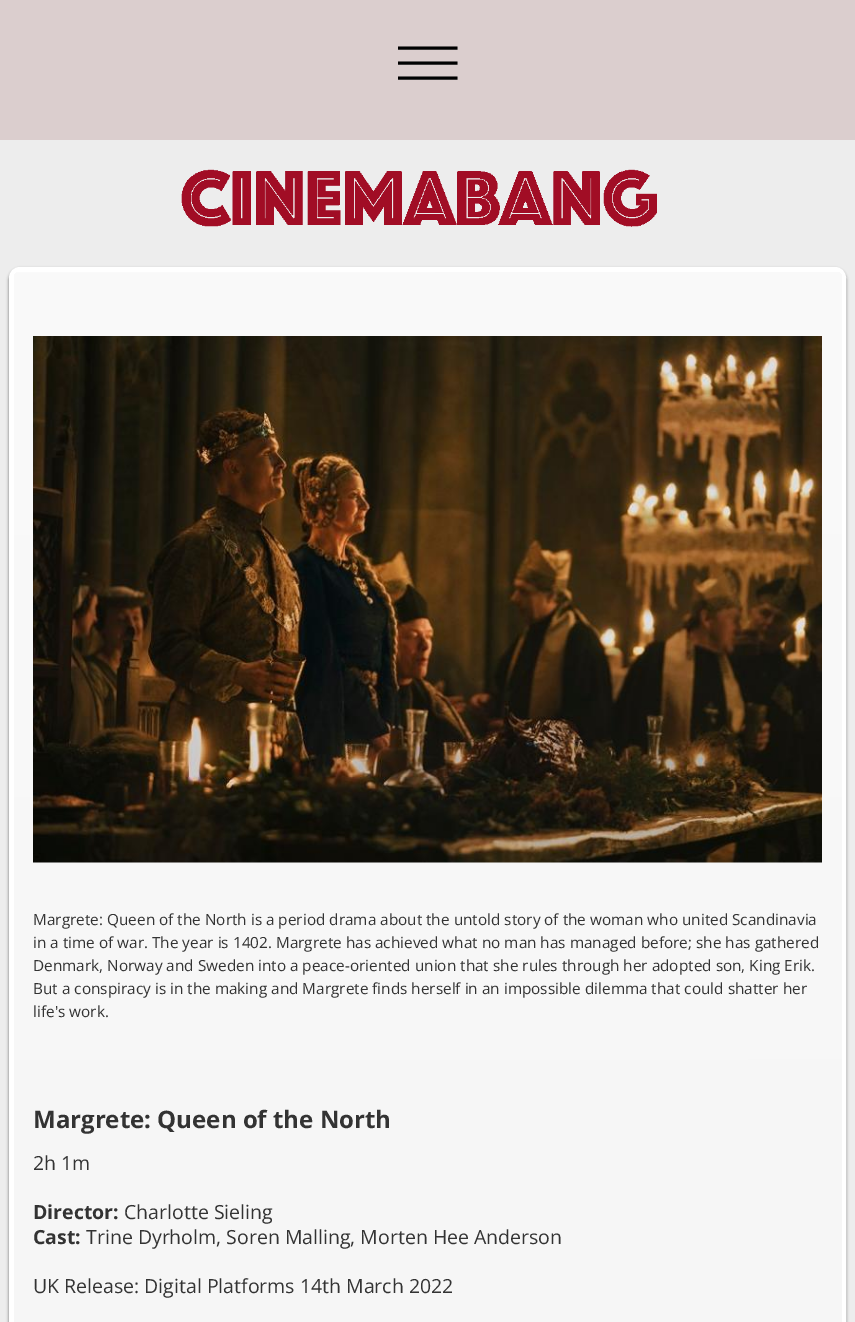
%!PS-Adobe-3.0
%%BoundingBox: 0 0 855 1322
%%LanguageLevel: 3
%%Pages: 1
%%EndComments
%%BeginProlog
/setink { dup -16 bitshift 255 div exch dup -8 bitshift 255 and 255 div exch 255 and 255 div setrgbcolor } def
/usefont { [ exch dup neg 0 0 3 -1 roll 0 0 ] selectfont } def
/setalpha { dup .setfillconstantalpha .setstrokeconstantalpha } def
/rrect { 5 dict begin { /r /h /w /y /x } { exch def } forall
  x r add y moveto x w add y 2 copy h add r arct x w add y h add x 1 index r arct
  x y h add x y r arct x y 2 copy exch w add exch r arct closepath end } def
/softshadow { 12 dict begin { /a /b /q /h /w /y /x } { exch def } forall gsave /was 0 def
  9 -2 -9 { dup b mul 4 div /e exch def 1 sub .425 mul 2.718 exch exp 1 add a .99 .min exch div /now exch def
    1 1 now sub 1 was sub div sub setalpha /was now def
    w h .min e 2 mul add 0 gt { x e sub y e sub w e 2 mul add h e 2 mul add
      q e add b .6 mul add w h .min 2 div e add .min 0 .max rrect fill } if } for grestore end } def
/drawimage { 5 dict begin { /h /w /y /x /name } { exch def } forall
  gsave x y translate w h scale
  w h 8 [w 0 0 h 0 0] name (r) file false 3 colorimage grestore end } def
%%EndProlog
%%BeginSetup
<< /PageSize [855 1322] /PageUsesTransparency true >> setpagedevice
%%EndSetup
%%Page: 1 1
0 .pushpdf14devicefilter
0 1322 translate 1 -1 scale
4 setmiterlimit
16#EDEDED setink
0 0 855 1322 rectfill
16#DBCECE setink
0 0 855 140 rectfill
gsave
398 44 60 37 rectclip
16#000000 setink
3 setlinewidth
397.5 48 moveto 457.5 48 lineto 397.5 63 moveto 457.5 63 lineto 397.5 78 moveto 457.5 78 lineto stroke
grestore
(img1.raw) 181 169 476 58 drawimage
16#000000 setink
9 269 837 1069 11 1.5 0.5 softshadow
16#FFFFFF setink
5 setlinewidth
11.5 269.5 832 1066 8.5 rrect stroke
gsave 14 272 828 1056 6 rrect clip newpath
<< /ShadingType 2 /ColorSpace /DeviceRGB /Coords [427 272 428 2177] /Extend [true true] /Function << /FunctionType 2 /Domain [0 1] /C0 [0.98 0.98 0.98] /C1 [0.949 0.949 0.949] /N 1 >> >> shfill grestore
(img2.raw) 33 336 789 527 drawimage
/OpenSans-Regular 15.35 usefont
16#333333 setink
[
    [(Margrete: Queen of the North is a period drama about the untold story of the woman who united Scandinavia) 33 925]
    [(in a time of war. The year is 1402. Margrete has achieved what no man has managed before; she has gathered) 33 948]
    [(Denmark, Norway and Sweden into a peace-oriented union that she rules through her adopted son, King Erik.) 33 971]
    [(But a conspiracy is in the making and Margrete finds herself in an impossible dilemma that could shatter her) 33 994]
    [(life's work.) 33 1017]
] { aload pop moveto show } forall
/OpenSans-Bold 24 usefont
33 1128 moveto (Margrete: Queen of the North) show
/OpenSans-Regular 19.5 usefont
33 1170 moveto (2h 1m) show
/OpenSans-Bold 19.5 usefont
33 1219 moveto (Director:) show
/OpenSans-Regular 19.5 usefont
124 1219 moveto (Charlotte Sieling) show
/OpenSans-Bold 19.5 usefont
33 1244 moveto (Cast:) show
/OpenSans-Regular 19.5 usefont
86 1244 moveto (Trine Dyrholm, Soren Malling, Morten Hee Anderson) show
33 1293 moveto (UK Release: Digital Platforms 14th March 2022) show
.poppdf14devicefilter showpage
%%EOF
